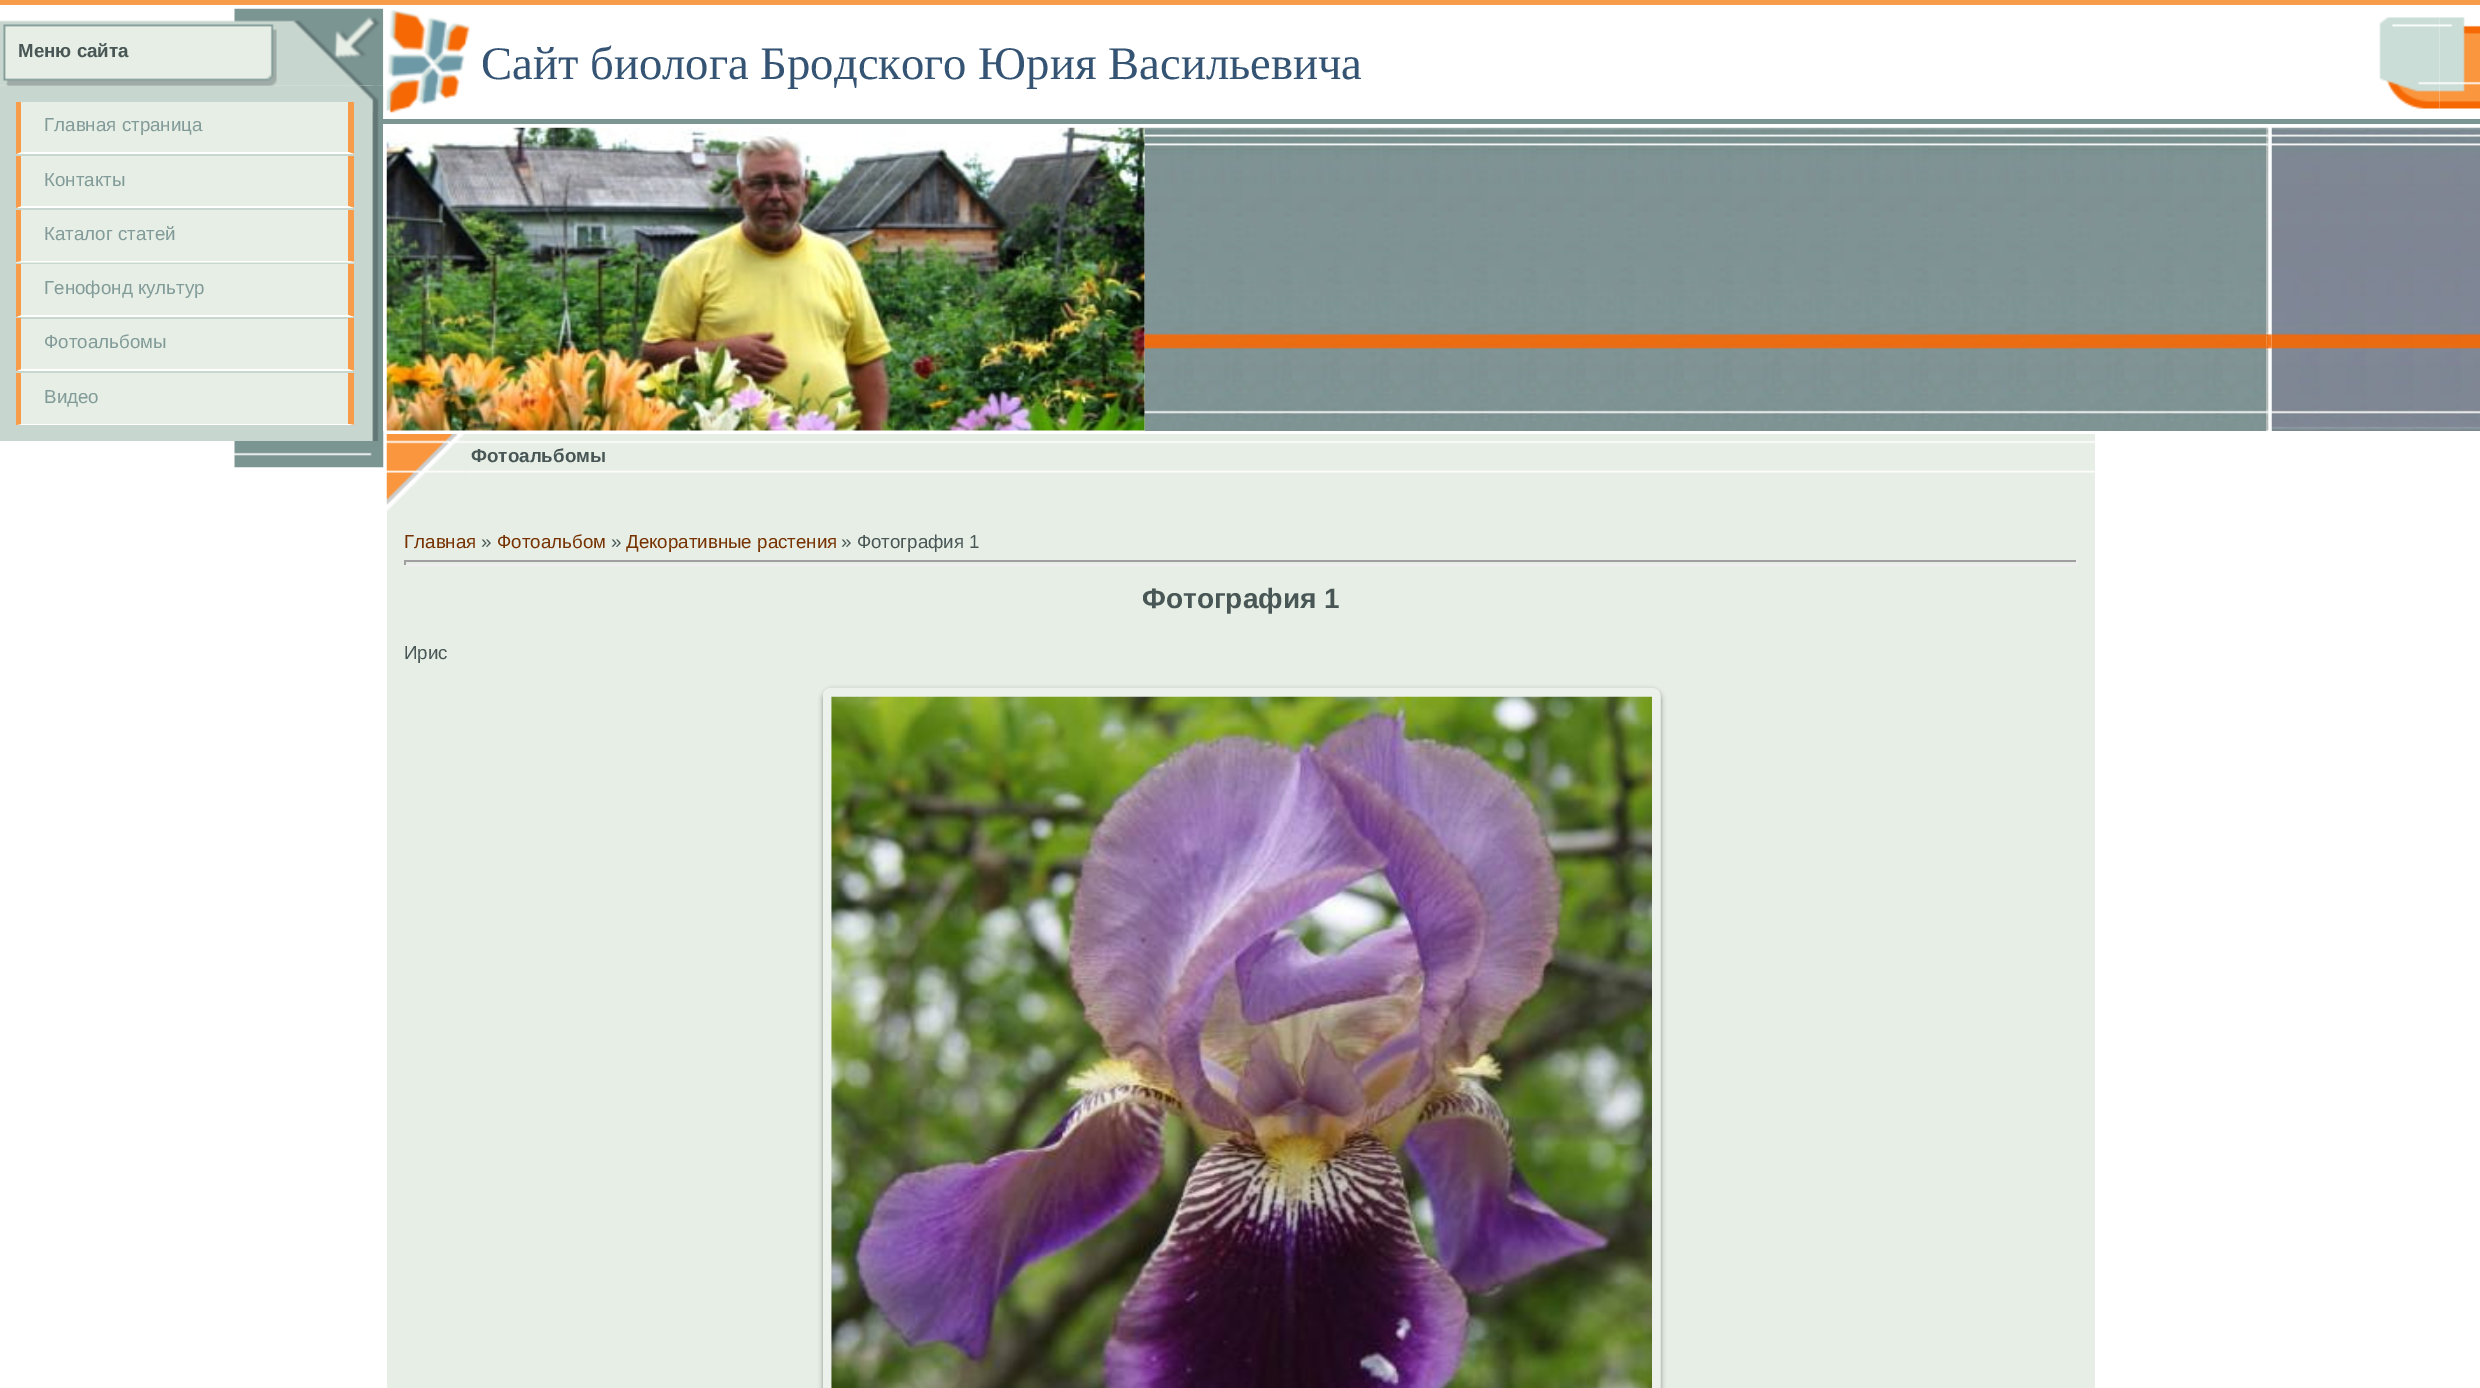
%!PS-Adobe-3.0
%%BoundingBox: 0 0 2480 1388
%%LanguageLevel: 3
%%Pages: 1
%%EndComments
%%BeginProlog
/setink { dup -16 bitshift 255 div exch dup -8 bitshift 255 and 255 div exch 255 and 255 div setrgbcolor } def
/usefont { [ exch dup neg 0 0 3 -1 roll 0 0 ] selectfont } def
/setalpha { dup .setfillconstantalpha .setstrokeconstantalpha } def
/rrect { 5 dict begin { /r /h /w /y /x } { exch def } forall
  x r add y moveto x w add y 2 copy h add r arct x w add y h add x 1 index r arct
  x y h add x y r arct x y 2 copy exch w add exch r arct closepath end } def
/softshadow { 12 dict begin { /a /b /q /h /w /y /x } { exch def } forall gsave /was 0 def
  9 -2 -9 { dup b mul 4 div /e exch def 1 sub .425 mul 2.718 exch exp 1 add a .99 .min exch div /now exch def
    1 1 now sub 1 was sub div sub setalpha /was now def
    w h .min e 2 mul add 0 gt { x e sub y e sub w e 2 mul add h e 2 mul add
      q e add b .6 mul add w h .min 2 div e add .min 0 .max rrect fill } if } for grestore end } def
/drawimage { 5 dict begin { /h /w /y /x /name } { exch def } forall
  gsave x y translate w h scale
  w h 8 [w 0 0 h 0 0] name (r) file false 3 colorimage grestore end } def
%%EndProlog
%%BeginSetup
<< /PageSize [2480 1388] /PageUsesTransparency true >> setpagedevice
%%EndSetup
%%Page: 1 1
0 .pushpdf14devicefilter
0 1388 translate 1 -1 scale
4 setmiterlimit
16#FFFFFF setink
0 0 2480 1388 rectfill
16#F79C4A setink
0 0 2480 5 rectfill
(img1.raw) 0 8 384 78 drawimage
/LiberationSans-Bold 18.75 usefont
16#485755 setink
18 57 moveto (Меню сайта) show
16#C7D6CF setink
0 86 359 355 rectfill
16#E7EEE6 setink
16 102 338 52 rectfill
16#F79C4A setink
354 102 moveto 354 154 lineto 348 152 lineto 348 102 lineto closepath fill
16#FFFFFF setink
354 154 moveto 16 154 lineto 21 152 lineto 348 152 lineto closepath fill
16#F79C4A setink
16 154 moveto 16 102 lineto 21 102 lineto 21 152 lineto closepath fill
/LiberationSans-Regular 18.75 usefont
16#819B98 setink
44 131 moveto (Главная страница) show
16#E7EEE6 setink
16 156 338 52 rectfill
16#F79C4A setink
354 156 moveto 354 208 lineto 348 206 lineto 348 156 lineto closepath fill
16#FFFFFF setink
354 208 moveto 16 208 lineto 21 206 lineto 348 206 lineto closepath fill
16#F79C4A setink
16 208 moveto 16 156 lineto 21 156 lineto 21 206 lineto closepath fill
16#819B98 setink
44 186 moveto (Контакты) show
16#E7EEE6 setink
16 210 338 53 rectfill
16#F79C4A setink
354 210 moveto 354 262 lineto 348 261 lineto 348 210 lineto closepath fill
16#FFFFFF setink
354 262 moveto 16 262 lineto 21 261 lineto 348 261 lineto closepath fill
16#F79C4A setink
16 262 moveto 16 210 lineto 21 210 lineto 21 261 lineto closepath fill
16#819B98 setink
44 240 moveto (Каталог статей) show
16#E7EEE6 setink
16 264 338 53 rectfill
16#F79C4A setink
354 264 moveto 354 317 lineto 348 315 lineto 348 264 lineto closepath fill
16#FFFFFF setink
354 317 moveto 16 317 lineto 21 315 lineto 348 315 lineto closepath fill
16#F79C4A setink
16 317 moveto 16 264 lineto 21 264 lineto 21 315 lineto closepath fill
16#819B98 setink
44 294 moveto (Генофонд культур) show
16#E7EEE6 setink
16 319 338 52 rectfill
16#F79C4A setink
354 318 moveto 354 371 lineto 348 369 lineto 348 318 lineto closepath fill
16#FFFFFF setink
354 371 moveto 16 371 lineto 21 369 lineto 348 369 lineto closepath fill
16#F79C4A setink
16 371 moveto 16 318 lineto 21 318 lineto 21 369 lineto closepath fill
16#819B98 setink
44 348 moveto (Фотоальбомы) show
16#E7EEE6 setink
16 373 338 52 rectfill
16#F79C4A setink
354 373 moveto 354 425 lineto 348 424 lineto 348 373 lineto closepath fill
16#FFFFFF setink
354 425 moveto 16 425 lineto 21 424 lineto 348 424 lineto closepath fill
16#F79C4A setink
16 425 moveto 16 373 lineto 21 373 lineto 21 424 lineto closepath fill
16#819B98 setink
44 403 moveto (Видео) show
(img2.raw) 359 85 25 356 drawimage
(img3.raw) 358 85 26 27 drawimage
(img4.raw) 234 441 150 27 drawimage
16#7B9592 setink
383 119 2097 5 rectfill
(img5.raw) 383 9 87 110 drawimage
/LiberationSerif-Regular 46.7 usefont
16#355473 setink
481 79 moveto (Сайт биолога Бродского Юрия Васильевича) show
(img6.raw) 2379 17 61 92 drawimage
(img7.raw) 2439 17 41 92 drawimage
16#FFFFFF setink
383 124 1 307 rectfill
16#7A938F setink
1145 430 1121 1 rectfill
(img9.raw) 1144 127 1123 304 drawimage
(img8.raw) 386 127 759 304 drawimage
16#7E8694 setink
2272 430 208 1 rectfill
(img11.raw) 2271 127 209 304 drawimage
(img10.raw) 2266 127 6 304 drawimage
16#E7EEE6 setink
387 434 1708 954 rectfill
(img13.raw) 465 441 1630 32 drawimage
(img12.raw) 386 434 80 78 drawimage
/LiberationSans-Bold 18.75 usefont
16#485755 setink
471 462 moveto (Фотоальбомы) show
/LiberationSans-Regular 18.75 usefont
16#763202 setink
404 548 moveto (Главная) show
16#485755 setink
481 548 moveto (») show
16#763202 setink
497 548 moveto (Фотоальбом) show
16#485755 setink
611 548 moveto (») show
16#763202 setink
626 548 moveto (Декоративные растения) show
16#485755 setink
841 548 moveto (» Фотография 1) show
[
    [404 560 1673 2 16#9F9F9F]
    [2076 560 2 5 16#EEEEEE]
    [404 564 1673 2 16#EEEEEE]
    [404 560 2 5 16#9F9F9F]
] { aload pop setink rectfill } forall
/LiberationSans-Bold 28 usefont
16#485755 setink
1142 608 moveto (Фотография 1) show
/LiberationSans-Regular 18.75 usefont
404 659 moveto (Ирис) show
gsave
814 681 moveto 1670 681 lineto 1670 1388 lineto 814 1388 lineto closepath 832 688 moveto 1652 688 lineto 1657 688 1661 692 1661 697 curveto 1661 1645 lineto 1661 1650 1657 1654 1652 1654 curveto 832 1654 lineto 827 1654 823 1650 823 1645 curveto 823 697 lineto 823 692 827 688 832 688 curveto closepath eoclip newpath
16#000000 setink
823 690 838 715 9 2.5 0.37 softshadow
grestore
(img14.raw) 823 688 838 700 drawimage
(img15.raw) 831 696 821 692 drawimage
.poppdf14devicefilter showpage
%%EOF
